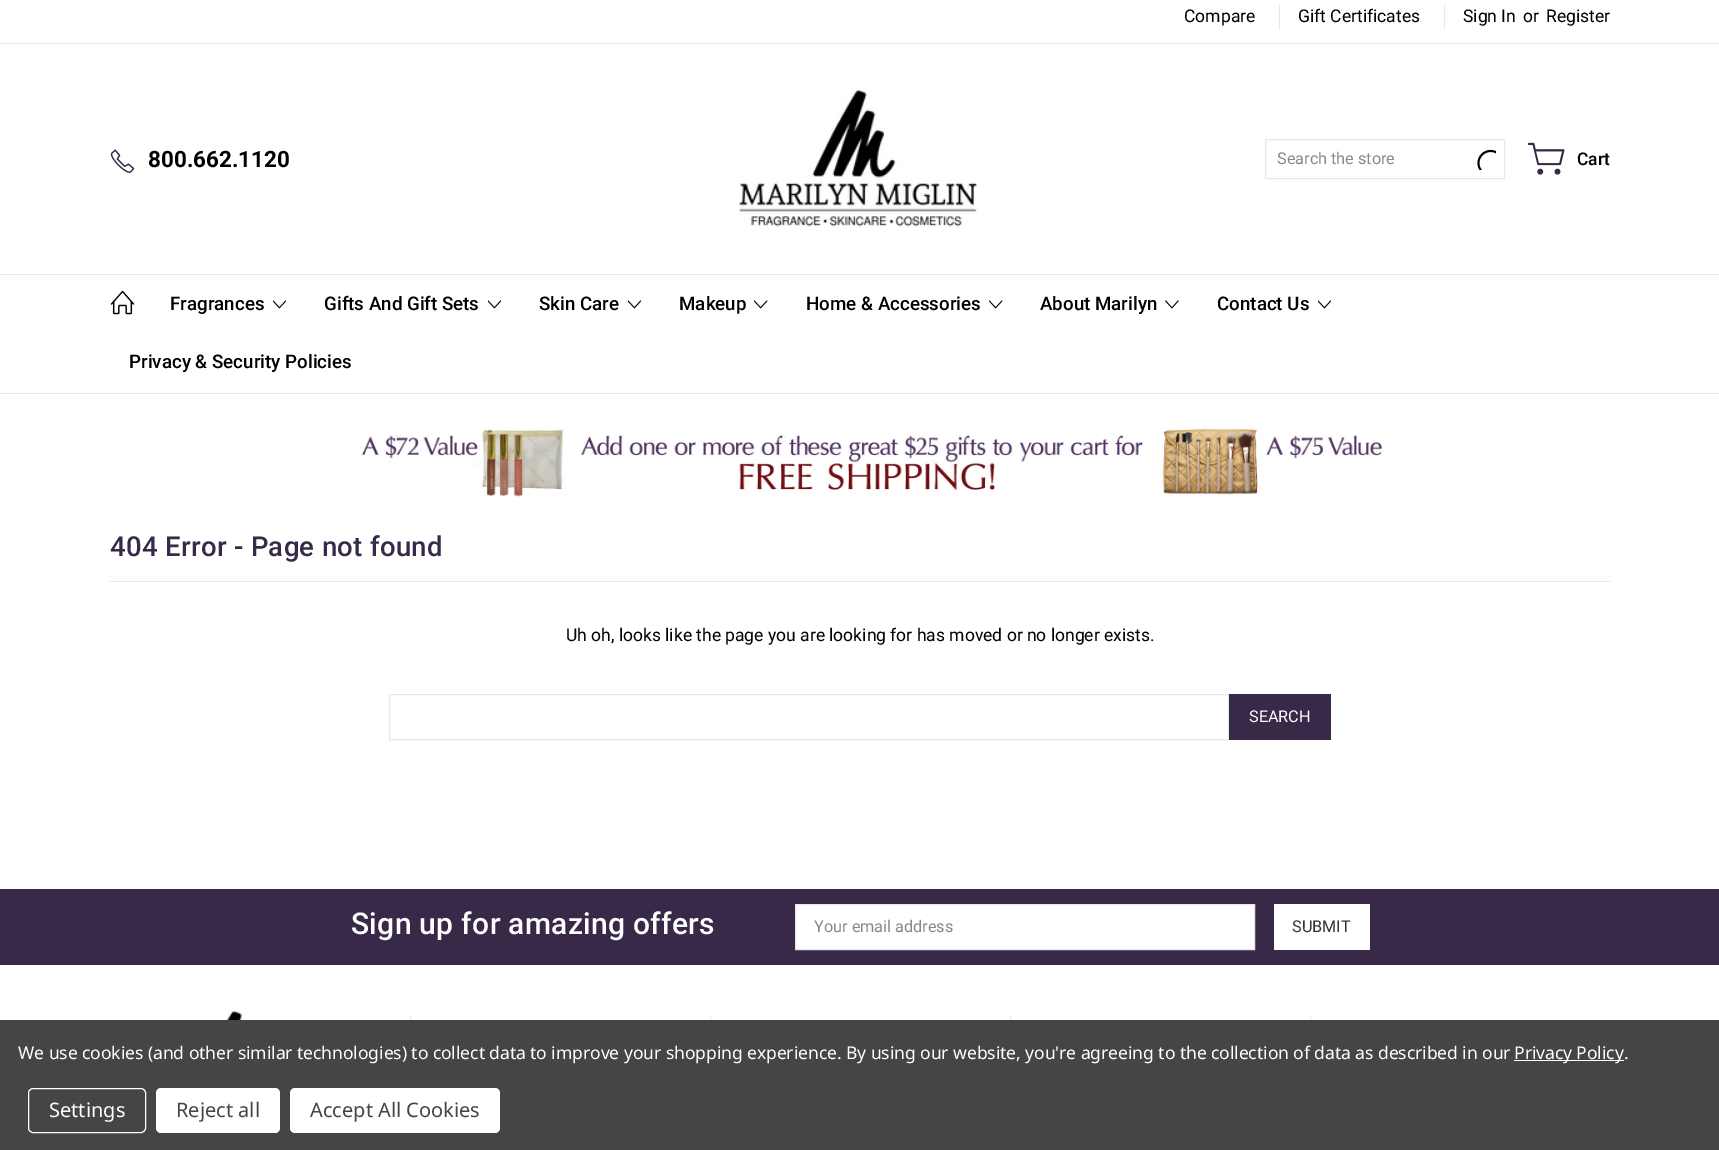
%!PS-Adobe-3.0
%%BoundingBox: 0 0 1719 1150
%%LanguageLevel: 3
%%Pages: 1
%%EndComments
%%BeginProlog
/setink { dup -16 bitshift 255 div exch dup -8 bitshift 255 and 255 div exch 255 and 255 div setrgbcolor } def
/usefont { [ exch dup neg 0 0 3 -1 roll 0 0 ] selectfont } def
/rrect { 5 dict begin { /r /h /w /y /x } { exch def } forall
  x r add y moveto x w add y 2 copy h add r arct x w add y h add x 1 index r arct
  x y h add x y r arct x y 2 copy exch w add exch r arct closepath end } def
/drawimage { 5 dict begin { /h /w /y /x /name } { exch def } forall
  gsave x y translate w h scale
  w h 8 [w 0 0 h 0 0] name (r) file false 3 colorimage grestore end } def
%%EndProlog
%%BeginSetup
<< /PageSize [1719 1150] >> setpagedevice
%%EndSetup
%%Page: 1 1
0 1150 translate 1 -1 scale
4 setmiterlimit
16#FFFFFF setink
0 0 1719 1150 rectfill
16#E8E8E8 setink
0 43 1719 1 rectfill
/Roboto-Regular 17.5 usefont
16#000000 setink
1184 22 moveto (Compare) show
16#E8E8E8 setink
1279 4 1 26 rectfill
16#000000 setink
1298 22 moveto (Gift Certificates) show
16#E8E8E8 setink
1444 4 1 26 rectfill
16#000000 setink
[
    [(Sign In) 1463 22]
    [(or) 1523 22]
    [(Register) 1546 22]
] { aload pop moveto show } forall
(img1.raw) 110 149 25 24 drawimage
/Roboto-Bold 22.5 usefont
148 167 moveto (800.662.1120) show
(img2.raw) 738 89 240 138 drawimage
16#E8E8E8 setink
1265.5 139.5 239 39 rectstroke
/Roboto-Regular 16.25 usefont
16#888888 setink
1277 164 moveto (Search the store) show
(img3.raw) 1477 149 19 21 drawimage
(img4.raw) 1528 142 37 33 drawimage
/Roboto-Medium 17.5 usefont
16#000000 setink
1577 165 moveto (Cart) show
16#E8E8E8 setink
0 274 1719 1 rectfill
0 393 1719 1 rectfill
(img5.raw) 110 290 25 25 drawimage
/Roboto-Medium 18.75 usefont
16#000000 setink
170 310 moveto (Fragrances) show
(img6.raw) 273 300 13 9 drawimage
324 310 moveto (Gifts And Gift Sets) show
(img6.raw) 488 300 13 9 drawimage
539 310 moveto (Skin Care) show
(img6.raw) 628 300 13 9 drawimage
679 310 moveto (Makeup) show
(img7.raw) 754 300 14 9 drawimage
806 310 moveto (Home & Accessories) show
(img7.raw) 989 300 14 9 drawimage
1040 310 moveto (About Marilyn) show
(img8.raw) 1165 300 14 9 drawimage
1217 310 moveto (Contact Us) show
(img6.raw) 1318 300 13 9 drawimage
129 368 moveto (Privacy & Security Policies) show
(img9.raw) 360 427 1023 70 drawimage
16#E8E8E8 setink
110 581 1500 1 rectfill
/Roboto-Medium 27.5 usefont
16#372947 setink
110 556 moveto 0.3 0 (404 Error - Page not found) ashow
/Roboto-Regular 17.5 usefont
16#000000 setink
566 641 moveto (Uh oh, looks like the page you are looking for has moved or no longer exists.) show
16#E8E8E8 setink
389.5 694.5 839 45 rectstroke
16#372947 setink
1229 694 102 46 rectfill
/Roboto-Regular 16.25 usefont
16#FFFFFF setink
1249 722 moveto (SEARCH) show
16#372947 setink
0 889 1719 76 rectfill
/Roboto-Medium 30 usefont
16#FFFFFF setink
351 934 moveto 0.3 0 (Sign up for amazing offers) ashow
795.5 904.5 moveto 1254.5 904.5 lineto 1254.5 949.5 lineto 795.5 949.5 lineto closepath gsave fill grestore
16#E8E8E8 setink
stroke
/Roboto-Regular 16.25 usefont
16#888888 setink
814 932 moveto (Your email address) show
16#FFFFFF setink
1274 904 96 46 rectfill
16#333333 setink
1292 932 moveto (SUBMIT) show
(img10.raw) 117 1011 233 9 drawimage
[
    [410 1015 1 5 16#E8E8E8]
    [710 1015 1 5 16#E8E8E8]
    [1010 1015 1 5 16#E8E8E8]
    [1310 1015 1 5 16#E8E8E8]
    [0 1020 1719 130 16#454545]
] { aload pop setink rectfill } forall
/NotoSans-Regular 17.5 usefont
16#FFFFFF setink
18 1059 moveto -0.06 0 (We use cookies \(and other similar technologies\) to collect data to improve your shopping experience. By using our website, you're agreeing to the collection of data as described in our) ashow
1514 1060 110 1 rectfill
1514 1059 moveto -0.06 0 (Privacy Policy.) ashow
28.5 1088.5 117 44 4.5 rrect stroke
/NotoSans-Regular 20 usefont
49 1117 moveto (Settings) show
156 1088 124 45 5 rrect fill
16#454545 setink
176 1117 moveto (Reject all) show
16#FFFFFF setink
290 1088 210 45 5 rrect fill
16#454545 setink
310 1117 moveto (Accept All Cookies) show
showpage
%%EOF
